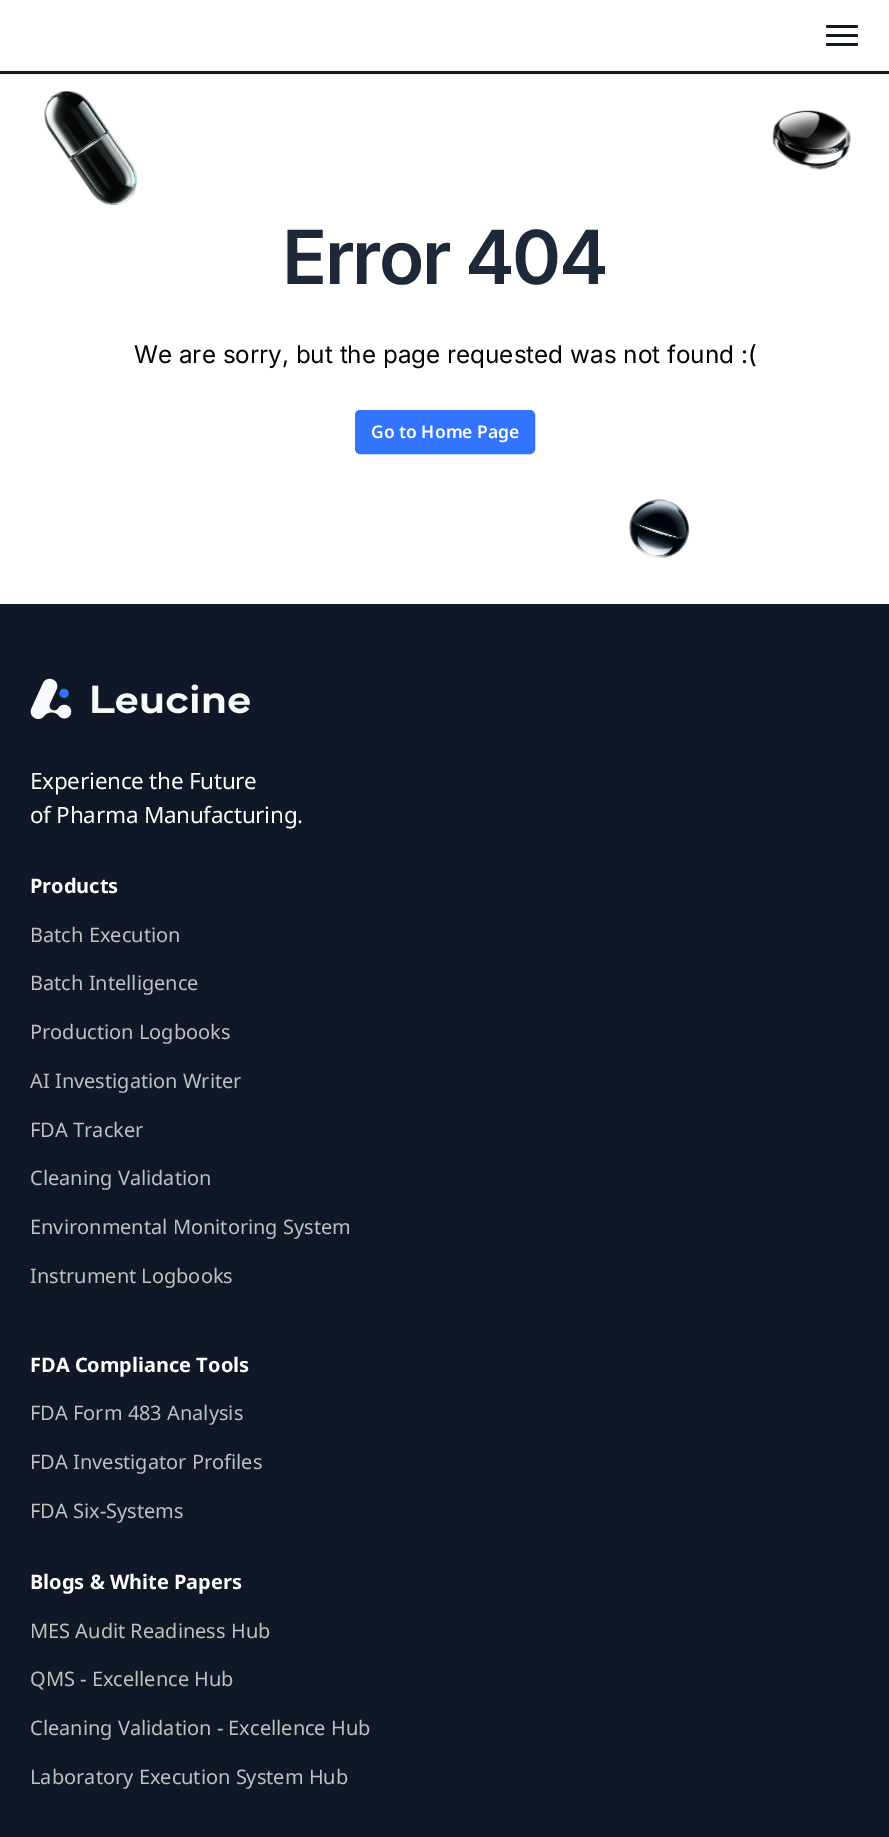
%!PS-Adobe-3.0
%%BoundingBox: 0 0 889 1837
%%LanguageLevel: 3
%%Pages: 1
%%EndComments
%%BeginProlog
/setink { dup -16 bitshift 255 div exch dup -8 bitshift 255 and 255 div exch 255 and 255 div setrgbcolor } def
/usefont { [ exch dup neg 0 0 3 -1 roll 0 0 ] selectfont } def
/rrect { 5 dict begin { /r /h /w /y /x } { exch def } forall
  x r add y moveto x w add y 2 copy h add r arct x w add y h add x 1 index r arct
  x y h add x y r arct x y 2 copy exch w add exch r arct closepath end } def
/drawimage { 5 dict begin { /h /w /y /x /name } { exch def } forall
  gsave x y translate w h scale
  w h 8 [w 0 0 h 0 0] name (r) file false 3 colorimage grestore end } def
%%EndProlog
%%BeginSetup
<< /PageSize [889 1837] >> setpagedevice
%%EndSetup
%%Page: 1 1
0 1837 translate 1 -1 scale
4 setmiterlimit
16#FFFFFF setink
0 0 889 1837 rectfill
16#F1F1F1 setink
0 74 889 1 rectfill
0 70 889 1 rectfill
16#101828 setink
826 25 32 3 1.5 rrect fill
826 34 32 3 1.5 rrect fill
826 43 32 3 1.5 rrect fill
0 71 889 3 rectfill
(img1.raw) 44 91 94 115 drawimage
(img2.raw) 772 110 80 60 drawimage
/Inter-SemiBold 74.5 usefont
16#1D2939 setink
282 284 moveto -2.5 0 (Error 404) ashow
/Inter-Regular 24.25 usefont
16#020202 setink
134 363 moveto (We are sorry, but the page requested was not found :\() show
16#3374FE setink
355.5 410.5 179 43 4.5 rrect gsave fill grestore
stroke
/NotoSans-SemiBold 17.5 usefont
16#FFFFFF setink
371 438 moveto (Go to Home Page) show
(img3.raw) 629 499 61 59 drawimage
16#101828 setink
0 604 889 1233 rectfill
(img4.raw) 30 678 220 42 drawimage
/NotoSans-Regular 22.5 usefont
16#FFFFFF setink
30 789 moveto -0.25 0 (Experience the Future) ashow
30 823 moveto -0.25 0 (of Pharma Manufacturing.) ashow
/NotoSans-Bold 20 usefont
30 893 moveto (Products) show
/NotoSans-Regular 20 usefont
16#C1C1C1 setink
[
    [(Batch Execution) 30 942]
    [(Batch Intelligence) 30 990]
    [(Production Logbooks) 30 1039]
    [(AI Investigation Writer) 30 1088]
    [(FDA Tracker) 30 1137]
    [(Cleaning Validation) 30 1185]
    [(Environmental Monitoring System) 30 1234]
    [(Instrument Logbooks) 30 1283]
] { aload pop moveto show } forall
/NotoSans-Bold 20 usefont
16#FFFFFF setink
30 1372 moveto (FDA Compliance Tools) show
/NotoSans-Regular 20 usefont
16#C1C1C1 setink
[
    [(FDA Form 483 Analysis) 30 1420]
    [(FDA Investigator Profiles) 30 1469]
    [(FDA Six-Systems) 30 1518]
] { aload pop moveto show } forall
/NotoSans-Bold 20 usefont
16#FFFFFF setink
30 1589 moveto (Blogs & White Papers) show
/NotoSans-Regular 20 usefont
16#C1C1C1 setink
[
    [(MES Audit Readiness Hub) 30 1638]
    [(QMS - Excellence Hub) 30 1686]
    [(Cleaning Validation - Excellence Hub) 30 1735]
    [(Laboratory Execution System Hub) 30 1784]
] { aload pop moveto show } forall
showpage
%%EOF
